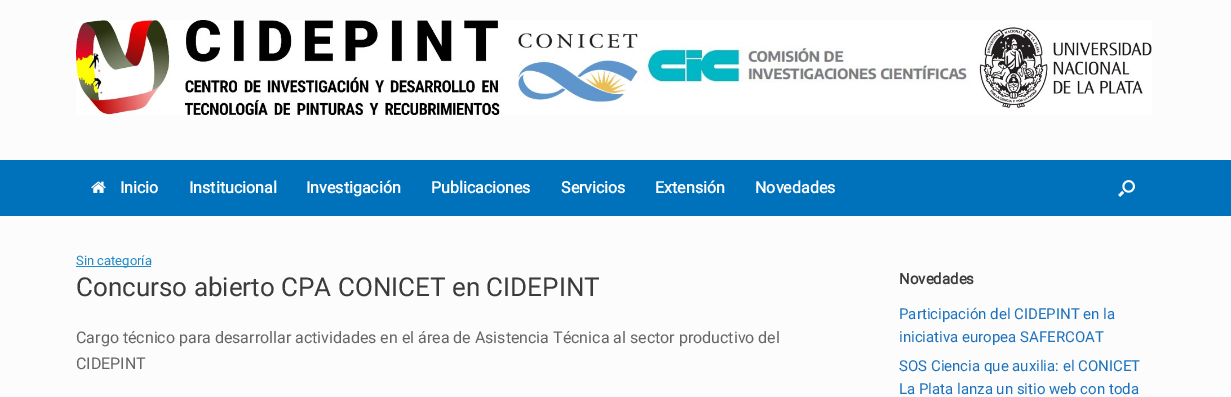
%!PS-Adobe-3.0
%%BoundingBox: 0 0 1231 397
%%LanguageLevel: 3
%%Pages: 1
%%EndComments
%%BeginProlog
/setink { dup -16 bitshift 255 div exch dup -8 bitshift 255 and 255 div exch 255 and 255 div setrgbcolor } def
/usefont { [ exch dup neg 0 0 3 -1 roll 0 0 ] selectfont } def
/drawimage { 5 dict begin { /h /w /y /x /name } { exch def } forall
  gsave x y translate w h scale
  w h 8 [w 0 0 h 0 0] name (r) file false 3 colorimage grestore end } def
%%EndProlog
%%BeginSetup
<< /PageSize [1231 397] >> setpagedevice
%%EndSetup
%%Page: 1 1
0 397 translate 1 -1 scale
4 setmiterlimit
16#FCFCFC setink
0 0 1231 397 rectfill
(img1.raw) 76 20 1076 95 drawimage
16#0072BC setink
0 160 1231 56 rectfill
(img2.raw) 91 181 15 12 drawimage
/Roboto-Bold 16 usefont
16#FFFFFF setink
[
    [(Inicio) 120 193]
    [(Institucional) 189 193]
    [(Investigación) 306 193]
    [(Publicaciones) 431 193]
    [(Servicios) 561 193]
    [(Extensión) 655 193]
    [(Novedades) 755 193]
] { aload pop moveto show } forall
(img3.raw) 1118 180 17 17 drawimage
16#248CC8 setink
76 266 75 1 rectfill
/Roboto-Regular 13 usefont
76 265 moveto (Sin categoría) show
/Roboto-Regular 26 usefont
16#3B3B3B setink
76 296 moveto (Concurso abierto CPA CONICET en CIDEPINT) show
/Roboto-Regular 16 usefont
16#666666 setink
76 343 moveto (Cargo técnico para desarrollar actividades en el área de Asistencia Técnica al sector productivo del) show
76 369 moveto (CIDEPINT) show
/Roboto-Bold 15 usefont
16#3B3B3B setink
899 284 moveto (Novedades) show
/Roboto-Regular 15 usefont
16#1E73BE setink
[
    [(Participación del CIDEPINT en la) 899 319]
    [(iniciativa europea SAFERCOAT) 899 342]
    [(SOS Ciencia que auxilia: el CONICET) 899 371]
    [(La Plata lanza un sitio web con toda) 899 394]
] { aload pop moveto show } forall
showpage
%%EOF
